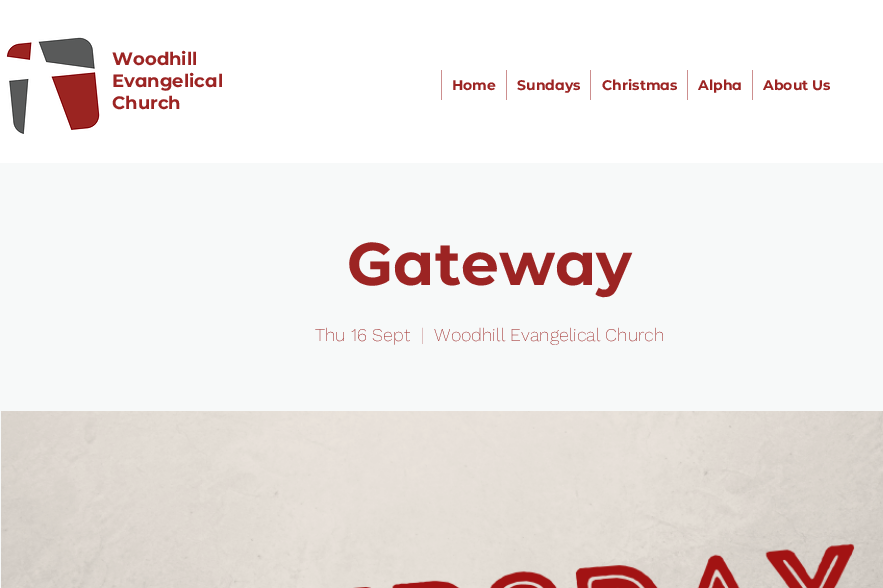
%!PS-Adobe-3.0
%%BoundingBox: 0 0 883 588
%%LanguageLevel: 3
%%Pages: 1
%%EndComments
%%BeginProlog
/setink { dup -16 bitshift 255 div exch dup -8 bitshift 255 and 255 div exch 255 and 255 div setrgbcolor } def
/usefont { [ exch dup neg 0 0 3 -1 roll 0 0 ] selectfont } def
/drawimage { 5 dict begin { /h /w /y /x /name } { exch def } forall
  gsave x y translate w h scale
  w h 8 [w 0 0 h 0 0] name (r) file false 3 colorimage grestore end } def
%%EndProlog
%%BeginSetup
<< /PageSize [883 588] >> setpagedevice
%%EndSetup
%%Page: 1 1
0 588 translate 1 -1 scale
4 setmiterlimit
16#FFFFFF setink
0 0 883 588 rectfill
(img1.raw) 6 37 94 97 drawimage
/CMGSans-Bold 18 usefont
16#9C2423 setink
[
    [(Woodhill) 112 65]
    [(Evangelical) 112 87]
    [(Church) 112 109]
] { aload pop moveto show } forall
16#CD8F8F setink
441 70 1 30 rectfill
/CMGSans-Bold 14 usefont
16#9C2423 setink
452 90 moveto (Home) show
16#CD8F8F setink
506 70 1 30 rectfill
16#9C2423 setink
517 90 moveto (Sundays) show
16#CD8F8F setink
590 70 1 30 rectfill
16#9C2423 setink
602 90 moveto (Christmas) show
16#CD8F8F setink
687 70 1 30 rectfill
16#9C2423 setink
698 90 moveto (Alpha) show
16#CD8F8F setink
752 70 1 30 rectfill
16#9C2423 setink
763 90 moveto (About Us) show
16#F7F9F9 setink
0 163 883 425 rectfill
/CMGSans-Bold 60 usefont
16#9C2423 setink
347 285 moveto (Gateway) show
/WorkSans-ExtraLight 18 usefont
[
    [(Thu 16 Sept) 315 341]
    [(|) 421 341]
    [(Woodhill Evangelical Church) 434 341]
] { aload pop moveto show } forall
(img2.raw) 1 411 882 177 drawimage
showpage
%%EOF
